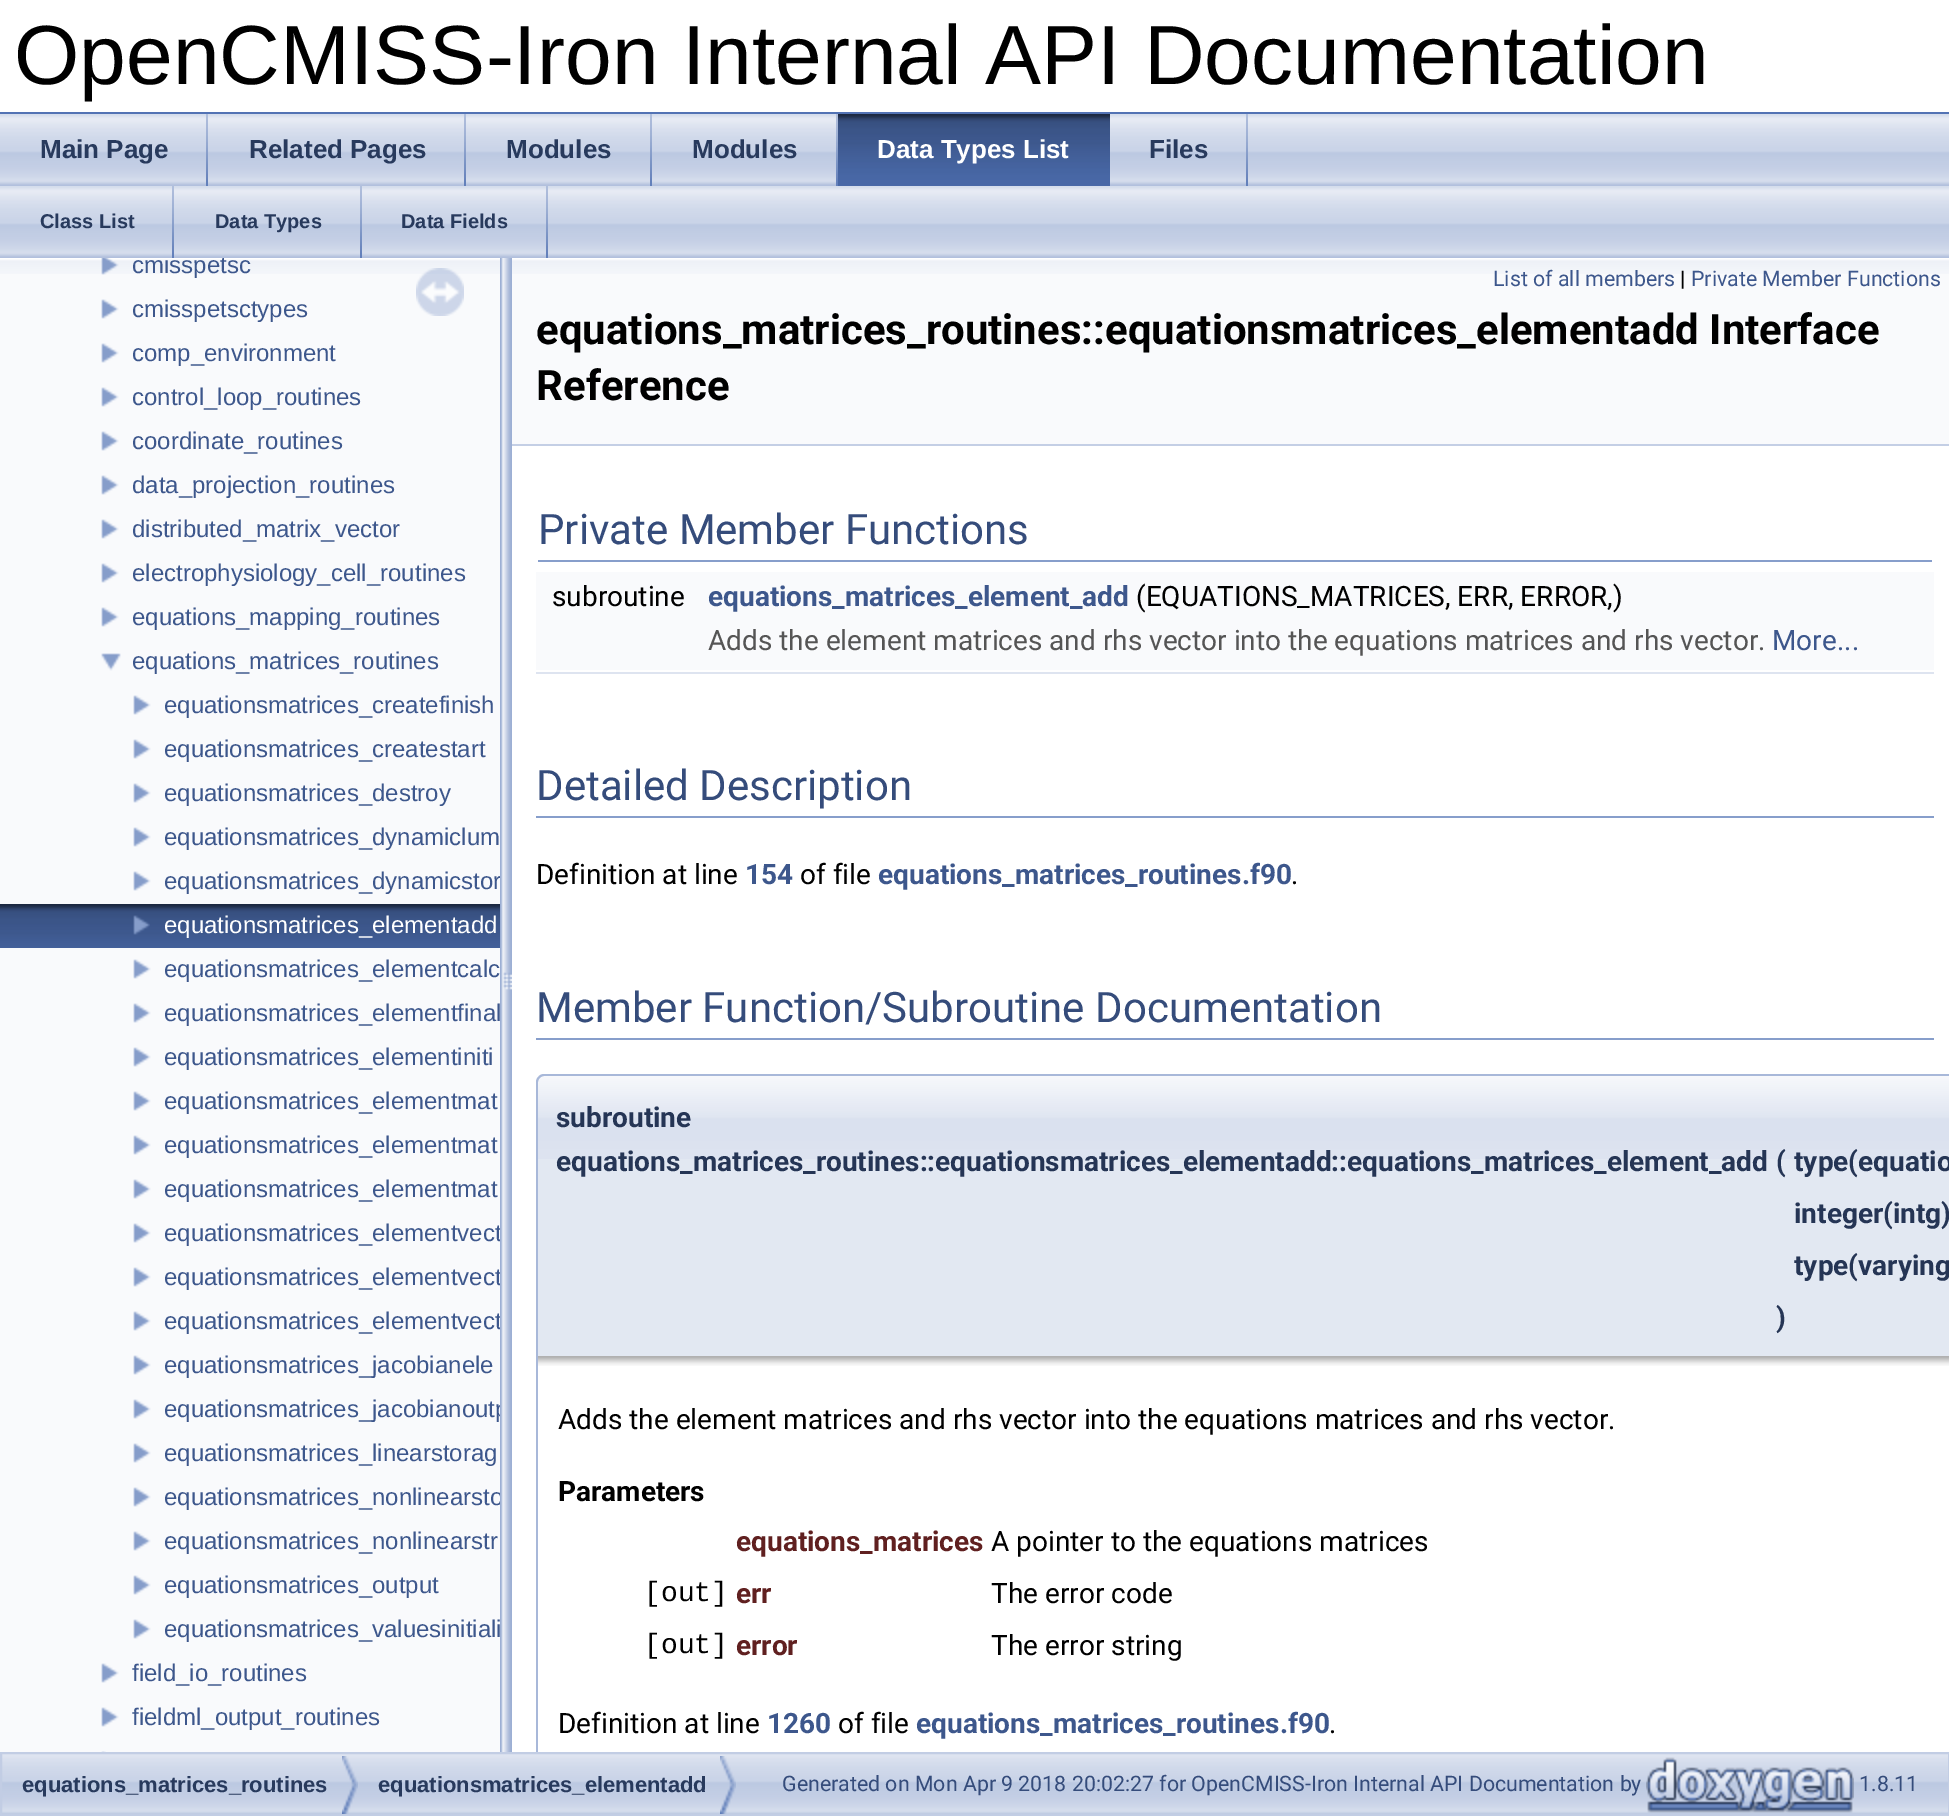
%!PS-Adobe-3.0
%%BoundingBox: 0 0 1949 1816
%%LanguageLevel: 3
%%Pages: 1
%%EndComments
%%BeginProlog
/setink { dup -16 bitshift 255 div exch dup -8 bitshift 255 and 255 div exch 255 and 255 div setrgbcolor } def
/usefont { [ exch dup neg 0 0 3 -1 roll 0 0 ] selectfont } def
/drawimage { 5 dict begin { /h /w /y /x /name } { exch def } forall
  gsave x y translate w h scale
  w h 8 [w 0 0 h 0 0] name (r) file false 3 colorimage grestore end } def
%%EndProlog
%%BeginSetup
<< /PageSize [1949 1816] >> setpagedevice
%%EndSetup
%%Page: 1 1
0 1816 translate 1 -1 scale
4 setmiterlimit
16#FFFFFF setink
0 0 1949 1816 rectfill
16#5373B4 setink
0 112 1949 2 rectfill
/LiberationSans-Regular 84 usefont
16#000000 setink
14 84 moveto (OpenCMISS-Iron Internal API Documentation) show
(img1.raw) 0 114 1949 72 drawimage
(img2.raw) 206 114 2 72 drawimage
/LiberationSans-Bold 26 usefont
16#283A5D setink
40 158 moveto (Main Page) show
(img2.raw) 464 114 2 72 drawimage
249 158 moveto (Related Pages) show
(img2.raw) 650 114 2 72 drawimage
506 158 moveto (Modules) show
(img2.raw) 836 114 2 72 drawimage
692 158 moveto (Modules) show
(img3.raw) 838 114 272 72 drawimage
16#FFFFFF setink
877 158 moveto (Data Types List) show
(img2.raw) 1246 114 2 72 drawimage
16#283A5D setink
1149 158 moveto (Files) show
(img1.raw) 0 186 1949 72 drawimage
(img2.raw) 172 186 2 72 drawimage
/LiberationSans-Bold 20 usefont
40 228 moveto (Class List) show
(img2.raw) 360 186 2 72 drawimage
215 228 moveto (Data Types) show
(img2.raw) 546 186 2 72 drawimage
401 228 moveto (Data Fields) show
16#F9FAFC setink
0 274 500 1478 rectfill
(img4.raw) 0 258 500 16 drawimage
(img5.raw) 101 258 18 17 drawimage
gsave
0 258 500 1494 rectclip
/LiberationSans-Regular 24 usefont
16#3D578C setink
132 273 moveto (cmisspetsc) show
grestore
(img6.raw) 101 299 18 20 drawimage
/LiberationSans-Regular 24 usefont
16#3D578C setink
132 317 moveto (cmisspetsctypes) show
(img6.raw) 101 343 18 20 drawimage
132 361 moveto (comp_environment) show
(img6.raw) 101 387 18 20 drawimage
132 405 moveto (control_loop_routines) show
(img6.raw) 101 431 18 20 drawimage
132 449 moveto (coordinate_routines) show
(img6.raw) 101 475 18 20 drawimage
132 493 moveto (data_projection_routines) show
(img6.raw) 101 519 18 20 drawimage
132 537 moveto (distributed_matrix_vector) show
(img6.raw) 101 563 18 20 drawimage
132 581 moveto (electrophysiology_cell_routines) show
(img6.raw) 101 607 18 20 drawimage
132 625 moveto (equations_mapping_routines) show
(img7.raw) 101 653 20 18 drawimage
132 669 moveto (equations_matrices_routines) show
(img6.raw) 133 695 18 20 drawimage
164 713 moveto (equationsmatrices_createfinish) show
(img6.raw) 133 739 18 20 drawimage
164 757 moveto (equationsmatrices_createstart) show
(img6.raw) 133 783 18 20 drawimage
164 801 moveto (equationsmatrices_destroy) show
(img6.raw) 133 827 18 20 drawimage
164 845 moveto (equationsmatrices_dynamiclum) show
(img6.raw) 133 871 18 20 drawimage
164 889 moveto (equationsmatrices_dynamicstor) show
(img8.raw) 0 904 500 44 drawimage
(img9.raw) 133 915 17 20 drawimage
16#FFFFFF setink
164 933 moveto (equationsmatrices_elementadd) show
(img6.raw) 133 959 18 20 drawimage
16#3D578C setink
164 977 moveto (equationsmatrices_elementcalc) show
(img6.raw) 133 1003 18 20 drawimage
164 1021 moveto (equationsmatrices_elementfinal) show
(img6.raw) 133 1047 18 20 drawimage
164 1065 moveto (equationsmatrices_elementiniti) show
(img6.raw) 133 1091 18 20 drawimage
164 1109 moveto (equationsmatrices_elementmat) show
(img6.raw) 133 1135 18 20 drawimage
164 1153 moveto (equationsmatrices_elementmat) show
(img6.raw) 133 1179 18 20 drawimage
164 1197 moveto (equationsmatrices_elementmat) show
(img6.raw) 133 1223 18 20 drawimage
164 1241 moveto (equationsmatrices_elementvect) show
(img6.raw) 133 1267 18 20 drawimage
164 1285 moveto (equationsmatrices_elementvect) show
(img6.raw) 133 1311 18 20 drawimage
164 1329 moveto (equationsmatrices_elementvect) show
(img6.raw) 133 1355 18 20 drawimage
164 1373 moveto (equationsmatrices_jacobianele) show
(img6.raw) 133 1399 18 20 drawimage
164 1417 moveto (equationsmatrices_jacobianoutp) show
(img6.raw) 133 1443 18 20 drawimage
164 1461 moveto (equationsmatrices_linearstorag) show
(img6.raw) 133 1487 18 20 drawimage
164 1505 moveto (equationsmatrices_nonlinearsto) show
(img6.raw) 133 1531 18 20 drawimage
164 1549 moveto (equationsmatrices_nonlinearstr) show
(img6.raw) 133 1575 18 20 drawimage
164 1593 moveto (equationsmatrices_output) show
(img6.raw) 133 1619 18 20 drawimage
164 1637 moveto (equationsmatrices_valuesinitiali) show
(img6.raw) 101 1663 18 20 drawimage
132 1681 moveto (field_io_routines) show
(img6.raw) 101 1707 18 20 drawimage
132 1725 moveto (fieldml_output_routines) show
(img10.raw) 101 1751 5 1 drawimage
(img11.raw) 416 268 48 48 drawimage
(img12.raw) 500 258 12 1494 drawimage
16#F9FAFC setink
512 274 1437 170 rectfill
(img13.raw) 512 258 1437 16 drawimage
16#C4CFE5 setink
512 444 1437 2 rectfill
/Roboto-Regular 21.35 usefont
16#3D578C setink
1493 286 moveto (List of all members) show
16#000000 setink
1680 286 moveto (|) show
16#3D578C setink
1691 286 moveto (Private Member Functions) show
/Roboto-Bold 42 usefont
16#000000 setink
536 344 moveto (equations_matrices_routines::equationsmatrices_elementadd Interface) show
536 400 moveto (Reference) show
16#879ECB setink
538 560 1394 2 rectfill
/Roboto-Regular 42 usefont
16#354C7B setink
538 544 moveto (Private Member Functions) show
16#F9FAFC setink
536 572 1398 46 rectfill
/Roboto-Regular 28 usefont
16#000000 setink
552 606 moveto (subroutine) show
/Roboto-Bold 28 usefont
16#3D578C setink
708 606 moveto (equations_matrices_element_add) show
/Roboto-Regular 28 usefont
16#000000 setink
1136 606 moveto (\(EQUATIONS_MATRICES, ERR, ERROR,\)) show
16#F9FAFC setink
536 618 1398 52 rectfill
16#555555 setink
708 650 moveto (Adds the element matrices and rhs vector into the equations matrices and rhs vector.) show
16#3D578C setink
1772 650 moveto (More...) show
16#DEE4F0 setink
536 672 1398 2 rectfill
16#879ECB setink
536 816 1398 2 rectfill
/Roboto-Regular 42 usefont
16#354C7B setink
536 800 moveto (Detailed Description) show
/Roboto-Regular 28 usefont
16#000000 setink
536 884 moveto (Definition at line) show
/Roboto-Bold 28 usefont
16#3D578C setink
745 884 moveto (154) show
/Roboto-Regular 28 usefont
16#000000 setink
800 884 moveto (of file) show
/Roboto-Bold 28 usefont
16#3D578C setink
878 884 moveto (equations_matrices_routines.f90) show
/Roboto-Regular 28 usefont
16#000000 setink
1291 884 moveto (.) show
16#879ECB setink
536 1038 1398 2 rectfill
/Roboto-Regular 42 usefont
16#354C7B setink
536 1022 moveto (Member Function/Subroutine Documentation) show
16#E2E8F2 setink
544 1074 moveto 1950 1074 lineto 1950 1356 lineto 536 1356 lineto 536 1082 lineto 536 1077.5 539.5 1074 544 1074 curveto closepath fill
(img14.raw) 536 1076 1413 83 drawimage
16#A8B8D9 setink
544 1074 moveto 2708 1074 lineto 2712 1074 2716 1078 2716 1082 curveto 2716 1356 lineto 536 1356 lineto 536 1082 lineto 536 1078 540 1074 544 1074 curveto closepath 544 1076 moveto 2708 1076 lineto 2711 1076 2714 1079 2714 1082 curveto 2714 1356 lineto 538 1356 lineto 538 1082 lineto 538 1079 541 1076 544 1076 curveto closepath eofill
/Roboto-Bold 28 usefont
16#253555 setink
[
    [(subroutine) 556 1127]
    [(equations_matrices_routines::equationsmatrices_elementadd::equations_matrices_element_add) 556 1171]
    [(\() 1776 1171]
    [(type\(equatio) 1794 1171]
    [(integer\(intg\)) 1794 1223]
    [(type\(varying) 1794 1275]
    [(\)) 1776 1327]
] { aload pop moveto show } forall
(img15.raw) 538 1356 1411 10 drawimage
16#A8B8D9 setink
536 1356 moveto 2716 1356 lineto 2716 1770 lineto 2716 1774 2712 1778 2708 1778 curveto 544 1778 lineto 540 1778 536 1774 536 1770 curveto closepath 538 1356 moveto 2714 1356 lineto 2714 1770 lineto 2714 1773 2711 1776 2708 1776 curveto 544 1776 lineto 541 1776 538 1773 538 1770 curveto closepath eofill
/Roboto-Regular 28 usefont
16#000000 setink
558 1429 moveto (Adds the element matrices and rhs vector into the equations matrices and rhs vector.) show
/Roboto-Bold 28 usefont
558 1501 moveto (Parameters) show
16#602020 setink
736 1551 moveto (equations_matrices) show
/Roboto-Regular 28 usefont
16#000000 setink
991 1551 moveto (A pointer to the equations matrices) show
/LiberationMono-Regular 28 usefont
644 1601 moveto ([out]) show
/Roboto-Bold 28 usefont
16#602020 setink
736 1603 moveto (err) show
/Roboto-Regular 28 usefont
16#000000 setink
991 1603 moveto (The error code) show
/LiberationMono-Regular 28 usefont
644 1653 moveto ([out]) show
/Roboto-Bold 28 usefont
16#602020 setink
736 1655 moveto (error) show
/Roboto-Regular 28 usefont
16#000000 setink
991 1655 moveto (The error string) show
558 1733 moveto (Definition at line) show
/Roboto-Bold 28 usefont
16#3D578C setink
767 1733 moveto (1260) show
/Roboto-Regular 28 usefont
16#000000 setink
838 1733 moveto (of file) show
/Roboto-Bold 28 usefont
16#3D578C setink
916 1733 moveto (equations_matrices_routines.f90) show
/Roboto-Regular 28 usefont
16#000000 setink
1329 1733 moveto (.) show
(img16.raw) 2 1754 1946 60 drawimage
16#C2CDE4 setink
2 setlinewidth
1 1753 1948 62 rectstroke
(img17.raw) 342 1756 16 58 drawimage
/LiberationSans-Bold 22 usefont
16#283A5D setink
22 1792 moveto (equations_matrices_routines) show
(img17.raw) 720 1756 16 58 drawimage
378 1792 moveto (equationsmatrices_elementadd) show
/Roboto-Regular 21.35 usefont
16#354C7B setink
782 1791 moveto (Generated on Mon Apr 9 2018 20:02:27 for OpenCMISS-Iron Internal API Documentation by) show
(img18.raw) 1646 1757 208 56 drawimage
1859 1791 moveto (1.8.11) show
showpage
%%EOF
